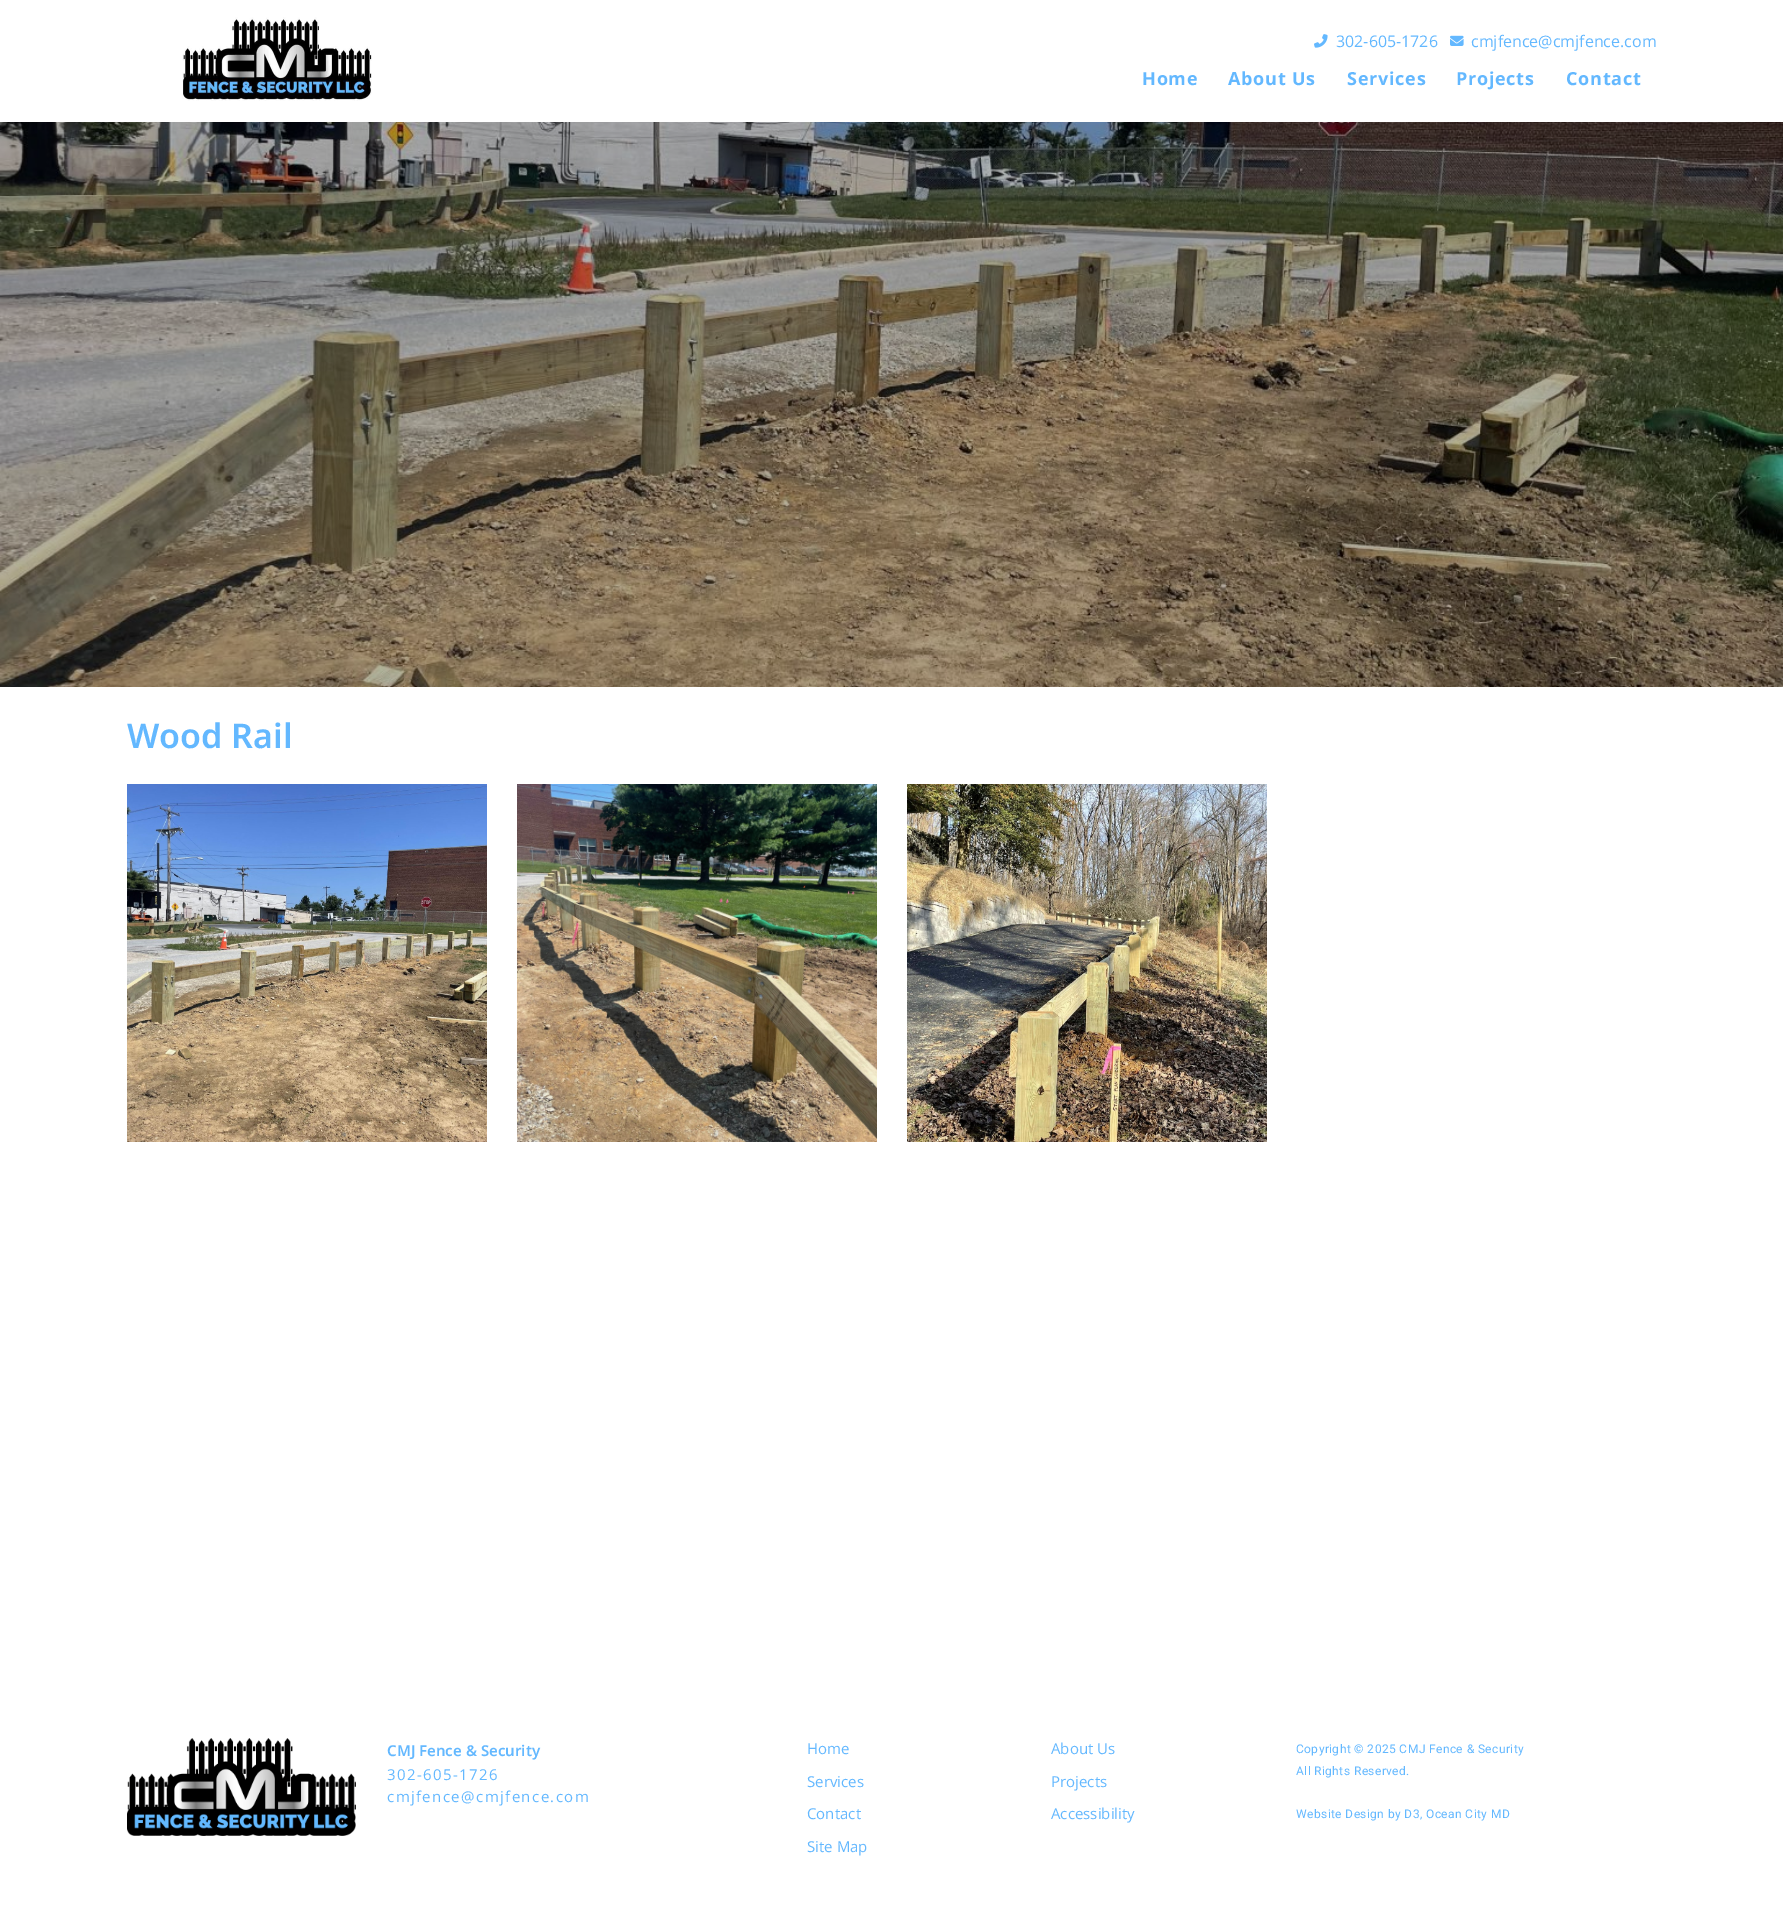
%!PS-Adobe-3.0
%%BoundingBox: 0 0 1783 1905
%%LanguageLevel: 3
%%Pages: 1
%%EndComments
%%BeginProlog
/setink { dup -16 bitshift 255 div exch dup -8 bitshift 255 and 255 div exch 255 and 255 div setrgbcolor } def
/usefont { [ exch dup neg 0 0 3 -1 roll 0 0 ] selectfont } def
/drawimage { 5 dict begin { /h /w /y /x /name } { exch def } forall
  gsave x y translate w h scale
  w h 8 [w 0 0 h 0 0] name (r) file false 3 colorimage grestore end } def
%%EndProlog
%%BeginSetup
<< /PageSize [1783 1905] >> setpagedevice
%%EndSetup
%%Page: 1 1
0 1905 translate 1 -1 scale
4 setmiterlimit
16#FFFFFF setink
0 0 1783 1905 rectfill
(img1.raw) 182 17 190 84 drawimage
(img2.raw) 1314 34 14 14 drawimage
/OpenSans-Regular 16 usefont
16#63B8FF setink
1336 47 moveto (302-605-1726) show
(img3.raw) 1450 35 14 11 drawimage
1471 47 moveto (cmjfence@cmjfence.com) show
/OpenSans-Bold 18 usefont
1142 85 moveto 0.75 0 (Home) ashow
1228 85 moveto 0.75 0 (About Us) ashow
1347 85 moveto 0.75 0 (Services) ashow
1456 85 moveto 0.75 0 (Projects) ashow
1566 85 moveto 0.75 0 (Contact) ashow
(img4.raw) 0 122 1783 565 drawimage
/NotoSans-SemiBold 34 usefont
127 748 moveto (Wood Rail) show
(img5.raw) 127 784 360 358 drawimage
(img6.raw) 517 784 360 358 drawimage
(img7.raw) 907 784 360 358 drawimage
(img8.raw) 127 1738 229 98 drawimage
/NotoSans-SemiBold 15 usefont
387 1756 moveto (CMJ Fence & Security) show
/OpenSans-Regular 15 usefont
387 1780 moveto 1.4 0 (302-605-1726) ashow
387 1802 moveto 1.4 0 (cmjfence@cmjfence.com) ashow
[
    [(Home) 807 1754]
    [(About Us) 1051 1754]
    [(Services) 807 1787]
    [(Projects) 1051 1787]
    [(Contact) 807 1819]
    [(Accessibility) 1051 1819]
    [(Site Map) 807 1852]
] { aload pop moveto show } forall
/Roboto-Regular 12 usefont
1296 1753 moveto 0.4 0 (Copyright © 2025 CMJ Fence & Security) ashow
1296 1775 moveto 0.4 0 (All Rights Reserved.) ashow
1296 1818 moveto 0.4 0 (Website Design by D3, Ocean City MD) ashow
showpage
%%EOF
